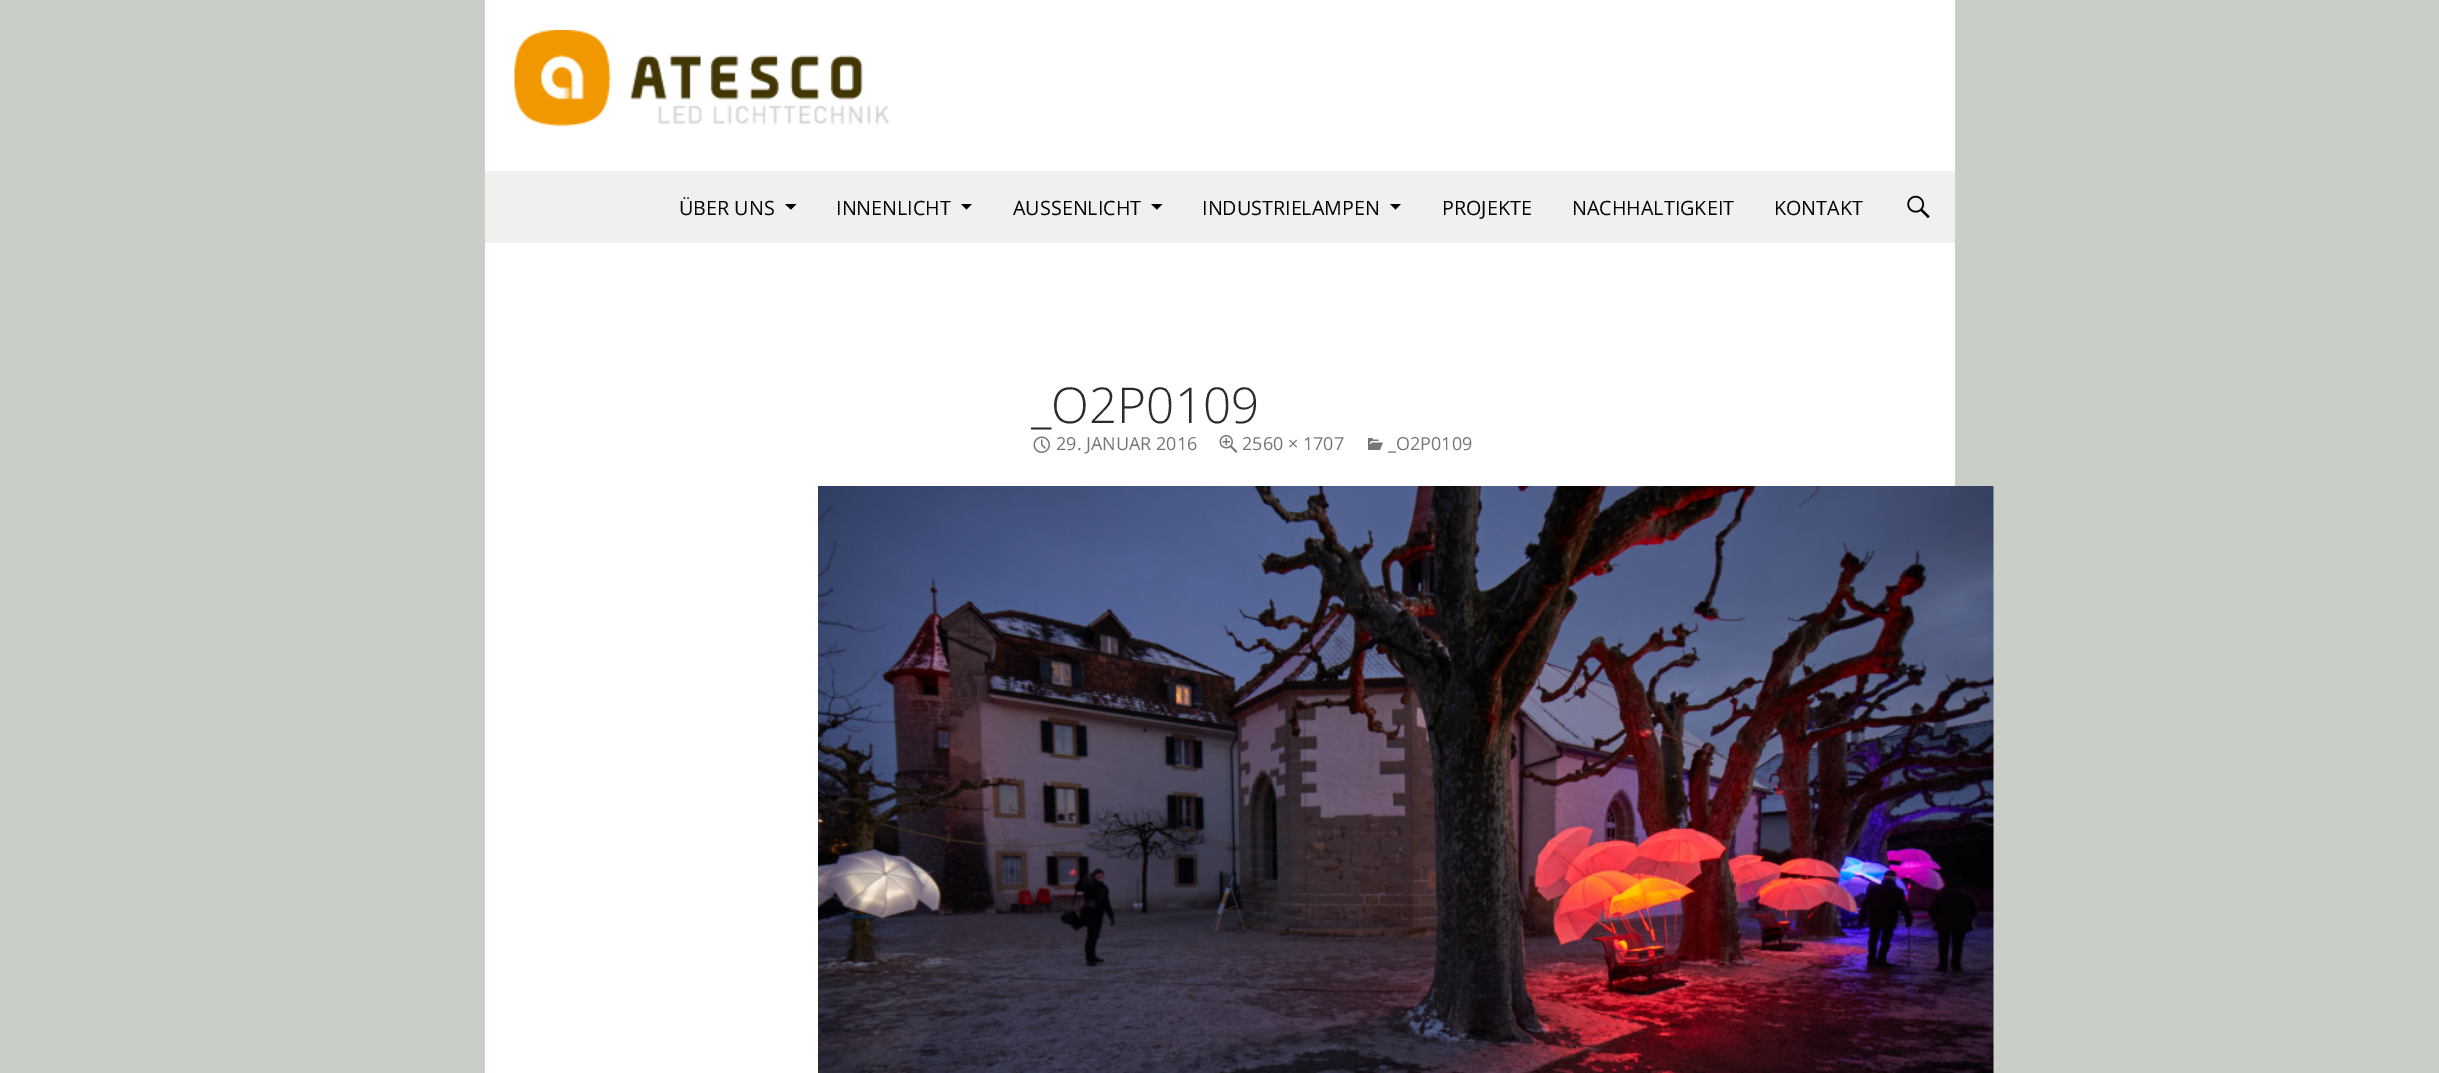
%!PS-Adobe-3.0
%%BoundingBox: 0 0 2439 1073
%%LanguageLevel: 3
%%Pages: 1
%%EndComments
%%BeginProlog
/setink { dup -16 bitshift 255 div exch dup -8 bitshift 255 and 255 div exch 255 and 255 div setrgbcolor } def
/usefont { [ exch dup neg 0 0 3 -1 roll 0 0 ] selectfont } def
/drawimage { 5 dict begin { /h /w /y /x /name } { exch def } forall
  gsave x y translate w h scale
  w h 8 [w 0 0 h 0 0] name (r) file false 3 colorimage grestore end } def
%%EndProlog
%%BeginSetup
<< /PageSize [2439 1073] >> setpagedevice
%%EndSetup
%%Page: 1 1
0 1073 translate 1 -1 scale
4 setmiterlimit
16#C9CFC7 setink
0 0 2439 1073 rectfill
16#FFFFFF setink
818 0 1137 486 rectfill
485 0 333 1073 rectfill
(img1.raw) 514 30 376 96 drawimage
16#EFF1EE setink
485 171 1470 72 rectfill
/OpenSans-Regular 19.75 usefont
16#000000 setink
679 215 moveto (ÜBER UNS) show
785 204 moveto 796.5 204 lineto 791 209.5 lineto closepath fill
836 215 moveto (INNENLICHT) show
961 204 moveto 972 204 lineto 966.5 209.5 lineto closepath fill
1013 215 moveto (AUSSENLICHT) show
1151 204 moveto 1162.5 204 lineto 1157 209.5 lineto closepath fill
1202 215 moveto (INDUSTRIELAMPEN) show
1390 204 moveto 1401 204 lineto 1395.5 209.5 lineto closepath fill
[
    [(PROJEKTE) 1442 215]
    [(NACHHALTIGKEIT) 1572 215]
    [(KONTAKT) 1774 215]
] { aload pop moveto show } forall
(img2.raw) 1907 195 23 24 drawimage
/OpenSans-Light 49.5 usefont
16#2B2B2B setink
1031 423 moveto (_O2P0109) show
(img3.raw) 1033 436 17 17 drawimage
/OpenSans-Regular 18 usefont
16#767676 setink
1056 450 moveto (29. JANUAR 2016) show
(img4.raw) 1219 435 19 18 drawimage
1242 450 moveto (2560 × 1707) show
(img5.raw) 1368 438 15 12 drawimage
1388 450 moveto (_O2P0109) show
(img6.raw) 818 486 1176 587 drawimage
showpage
%%EOF
